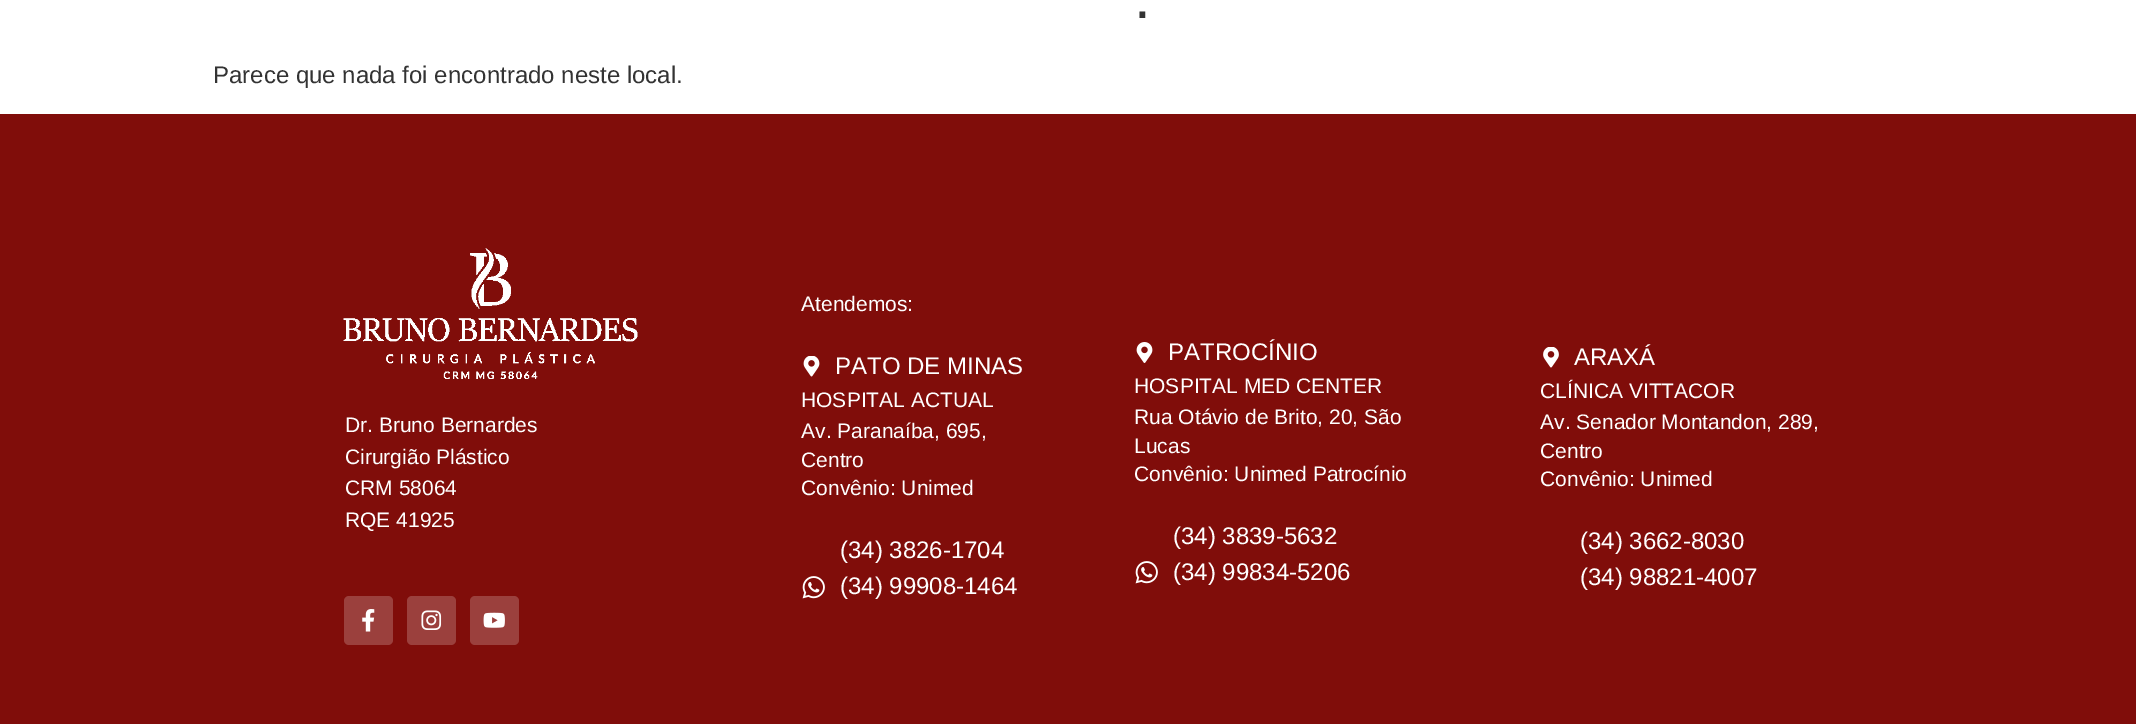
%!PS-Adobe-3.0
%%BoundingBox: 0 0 2136 724
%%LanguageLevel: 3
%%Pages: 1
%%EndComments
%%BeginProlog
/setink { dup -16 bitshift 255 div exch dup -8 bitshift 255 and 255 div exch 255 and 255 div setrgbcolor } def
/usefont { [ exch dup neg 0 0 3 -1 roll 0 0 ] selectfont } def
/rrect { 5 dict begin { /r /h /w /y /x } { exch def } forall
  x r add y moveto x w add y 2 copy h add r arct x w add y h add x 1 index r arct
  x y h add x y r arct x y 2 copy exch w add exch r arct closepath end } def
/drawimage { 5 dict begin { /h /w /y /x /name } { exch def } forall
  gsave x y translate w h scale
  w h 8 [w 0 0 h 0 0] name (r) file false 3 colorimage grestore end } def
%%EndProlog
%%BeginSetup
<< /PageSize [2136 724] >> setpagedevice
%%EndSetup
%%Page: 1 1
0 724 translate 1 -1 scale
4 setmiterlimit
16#FFFFFF setink
0 0 2136 724 rectfill
/LiberationSans-Regular 60 usefont
16#333333 setink
1134 18 moveto (.) show
/LiberationSans-Regular 24 usefont
213 83 moveto (Parece que nada foi encontrado neste local.) show
16#800D0A setink
0 114 2136 610 rectfill
(img1.raw) 343 248 295 131 drawimage
/LiberationSans-Regular 21 usefont
16#FFFFFF setink
[
    [(Dr. Bruno Bernardes) 345 432]
    [(Cirurgião Plástico) 345 464]
    [(CRM 58064) 345 495]
    [(RQE 41925) 345 527]
] { aload pop moveto show } forall
16#9B403D setink
344 596 49 49 5 rrect fill
(img2.raw) 362 609 13 23 drawimage
407 596 49 49 5 rrect fill
(img3.raw) 421 610 21 20 drawimage
470 596 49 49 5 rrect fill
(img4.raw) 483 612 22 16 drawimage
16#FFFFFF setink
801 311 moveto (Atendemos:) show
(img5.raw) 803 356 17 21 drawimage
/LiberationSans-Regular 24 usefont
835 374 moveto (PATO DE MINAS) show
/LiberationSans-Regular 21 usefont
[
    [(HOSPITAL ACTUAL) 801 407]
    [(Av. Paranaíba, 695,) 801 438]
    [(Centro) 801 467]
    [(Convênio: Unimed) 801 495]
] { aload pop moveto show } forall
/LiberationSans-Regular 24 usefont
840 558 moveto (\(34\) 3826-1704) show
(img6.raw) 802 576 23 23 drawimage
840 594 moveto (\(34\) 99908-1464) show
(img7.raw) 1136 342 17 21 drawimage
1168 360 moveto (PATROCÍNIO) show
/LiberationSans-Regular 21 usefont
[
    [(HOSPITAL MED CENTER) 1134 393]
    [(Rua Otávio de Brito, 20, São) 1134 424]
    [(Lucas) 1134 453]
    [(Convênio: Unimed Patrocínio) 1134 481]
] { aload pop moveto show } forall
/LiberationSans-Regular 24 usefont
1173 544 moveto (\(34\) 3839-5632) show
(img6.raw) 1135 561 23 23 drawimage
1173 580 moveto (\(34\) 99834-5206) show
(img8.raw) 1543 347 16 21 drawimage
1574 365 moveto (ARAXÁ) show
/LiberationSans-Regular 21 usefont
[
    [(CLÍNICA VITTACOR) 1540 398]
    [(Av. Senador Montandon, 289,) 1540 429]
    [(Centro) 1540 458]
    [(Convênio: Unimed) 1540 486]
] { aload pop moveto show } forall
/LiberationSans-Regular 24 usefont
1580 549 moveto (\(34\) 3662-8030) show
1580 585 moveto (\(34\) 98821-4007) show
showpage
%%EOF
